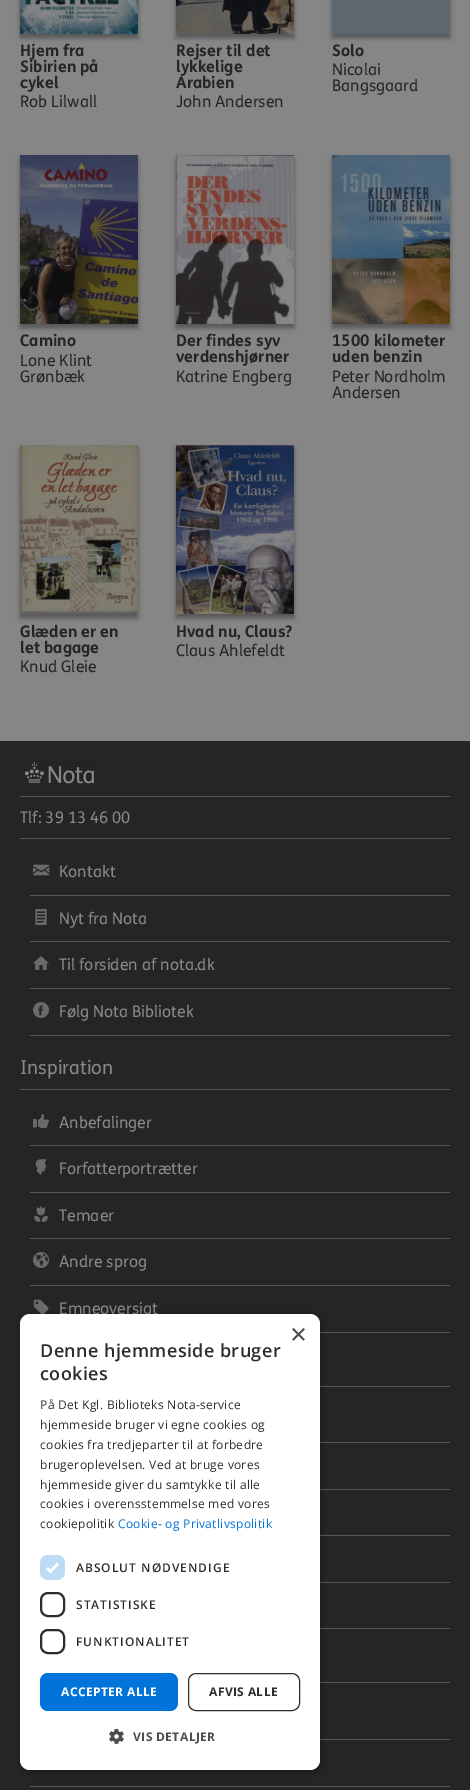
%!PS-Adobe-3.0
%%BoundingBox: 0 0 470 1790
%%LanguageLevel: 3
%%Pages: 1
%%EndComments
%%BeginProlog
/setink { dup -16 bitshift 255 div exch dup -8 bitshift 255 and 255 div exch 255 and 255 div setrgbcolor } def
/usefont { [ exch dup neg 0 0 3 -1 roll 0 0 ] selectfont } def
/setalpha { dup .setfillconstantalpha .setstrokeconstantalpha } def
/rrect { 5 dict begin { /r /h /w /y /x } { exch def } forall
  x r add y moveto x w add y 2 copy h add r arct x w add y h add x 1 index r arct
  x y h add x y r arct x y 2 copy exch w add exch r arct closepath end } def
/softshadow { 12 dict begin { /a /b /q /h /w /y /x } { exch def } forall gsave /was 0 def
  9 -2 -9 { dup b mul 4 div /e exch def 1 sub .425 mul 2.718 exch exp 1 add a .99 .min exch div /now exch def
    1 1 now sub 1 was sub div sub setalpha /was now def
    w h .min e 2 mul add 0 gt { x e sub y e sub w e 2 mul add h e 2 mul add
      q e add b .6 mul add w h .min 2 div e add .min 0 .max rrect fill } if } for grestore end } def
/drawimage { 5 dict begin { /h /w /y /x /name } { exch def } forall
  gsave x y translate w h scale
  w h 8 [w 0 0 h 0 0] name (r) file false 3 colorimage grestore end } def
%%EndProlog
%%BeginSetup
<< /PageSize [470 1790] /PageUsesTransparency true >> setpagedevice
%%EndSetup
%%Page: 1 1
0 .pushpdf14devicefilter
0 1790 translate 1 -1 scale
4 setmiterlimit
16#252525 setink
0 0 470 1790 rectfill
16#868686 setink
0 0 470 741 rectfill
16#090909 setink
20 -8 118 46 0 2.5 0.4 softshadow
(img1.raw) 20 0 118 34 drawimage
/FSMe-Bold 16 usefont
16#252525 setink
[
    [(Hjem fra) 20 56]
    [(Sibirien på) 20 72]
    [(cykel) 20 88]
] { aload pop moveto show } forall
/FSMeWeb-Regular 16 usefont
20 107 moveto (Rob Lilwall) show
16#090909 setink
176 -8 118 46 0 2.5 0.4 softshadow
(img2.raw) 176 0 118 34 drawimage
/FSMe-Bold 16 usefont
16#252525 setink
[
    [(Rejser til det) 176 56]
    [(lykkelige) 176 72]
    [(Arabien) 176 88]
] { aload pop moveto show } forall
/FSMeWeb-Regular 16 usefont
176 107 moveto (John Andersen) show
16#090909 setink
332 -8 118 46 0 2.5 0.4 softshadow
16#5E676E setink
332 0 118 34 rectfill
/FSMe-Bold 16 usefont
16#252525 setink
332 56 moveto (Solo) show
/FSMeWeb-Regular 16 usefont
332 75 moveto (Nicolai) show
332 91 moveto (Bangsgaard) show
16#090909 setink
20 159 118 169 0 2.5 0.4 softshadow
(img3.raw) 20 155 118 169 drawimage
/FSMe-Bold 16 usefont
16#252525 setink
20 346 moveto (Camino) show
/FSMeWeb-Regular 16 usefont
20 366 moveto (Lone Klint) show
20 382 moveto (Grønbæk) show
16#090909 setink
176 159 118 169 0 2.5 0.4 softshadow
(img4.raw) 176 155 118 169 drawimage
/FSMe-Bold 16 usefont
16#252525 setink
176 346 moveto (Der findes syv) show
176 362 moveto (verdenshjørner) show
/FSMeWeb-Regular 16 usefont
176 382 moveto (Katrine Engberg) show
16#090909 setink
332 159 118 169 0 2.5 0.4 softshadow
(img5.raw) 332 155 118 169 drawimage
/FSMe-Bold 16 usefont
16#252525 setink
332 346 moveto (1500 kilometer) show
332 362 moveto (uden benzin) show
/FSMeWeb-Regular 16 usefont
332 382 moveto (Peter Nordholm) show
332 398 moveto (Andersen) show
16#090909 setink
20 449 118 169 0 2.5 0.4 softshadow
(img6.raw) 20 445 118 169 drawimage
/FSMe-Bold 16 usefont
16#252525 setink
20 637 moveto (Glæden er en) show
20 653 moveto (let bagage) show
/FSMeWeb-Regular 16 usefont
20 672 moveto (Knud Gleie) show
16#090909 setink
176 449 118 169 0 2.5 0.4 softshadow
(img7.raw) 176 445 118 169 drawimage
/FSMe-Bold 16 usefont
16#252525 setink
176 637 moveto (Hvad nu, Claus?) show
/FSMeWeb-Regular 16 usefont
176 656 moveto (Claus Ahlefeldt) show
(img8.raw) 24 762 71 22 drawimage
16#585858 setink
20 796 430 1 rectfill
16#888888 setink
20 823 moveto (Tlf: 39 13 46 00) show
16#585858 setink
20 838 430 1 rectfill
30 895 420 1 rectfill
(img9.raw) 32 864 18 12 drawimage
16#888888 setink
59 877 moveto (Kontakt) show
16#585858 setink
30 941 420 1 rectfill
(img10.raw) 35 909 12 16 drawimage
16#888888 setink
59 924 moveto (Nyt fra Nota) show
16#585858 setink
30 988 420 1 rectfill
(img11.raw) 33 956 16 14 drawimage
16#888888 setink
59 970 moveto (Til forsiden af nota.dk) show
16#585858 setink
30 1035 420 1 rectfill
(img12.raw) 33 1002 16 16 drawimage
16#888888 setink
59 1017 moveto (Følg Nota Bibliotek) show
/FSMeWeb-Regular 19 usefont
20 1074 moveto (Inspiration) show
16#585858 setink
20 1089 430 1 rectfill
30 1145 420 1 rectfill
(img13.raw) 33 1114 16 14 drawimage
/FSMeWeb-Regular 16 usefont
16#888888 setink
59 1128 moveto (Anbefalinger) show
16#585858 setink
30 1192 420 1 rectfill
(img14.raw) 35 1159 12 16 drawimage
16#888888 setink
59 1174 moveto (Forfatterportrætter) show
16#585858 setink
30 1238 420 1 rectfill
(img15.raw) 34 1206 14 16 drawimage
16#888888 setink
59 1221 moveto (Temaer) show
16#585858 setink
30 1285 420 1 rectfill
(img16.raw) 33 1252 16 16 drawimage
16#888888 setink
59 1267 moveto (Andre sprog) show
16#585858 setink
320 1332 130 1 rectfill
(img17.raw) 33 1299 16 15 drawimage
16#888888 setink
59 1314 moveto (Emneoversigt) show
[
    [320 1386 130 1 16#585858]
    [320 1442 130 1 16#585858]
    [320 1489 130 1 16#585858]
    [320 1535 130 1 16#585858]
    [320 1582 130 1 16#585858]
    [320 1628 130 1 16#585858]
    [320 1682 130 1 16#585858]
    [320 1739 130 1 16#585858]
    [30 1786 420 1 16#585858]
] { aload pop setink rectfill } forall
16#000000 setink
21 1316 300 456 10 4 0.35 softshadow
16#FFFFFF setink
20 1314 300 456 10 rrect fill
/LiberationSans-Regular 29 usefont
16#4D4D4D setink
290 1344 moveto (×) show
/OpenSans-SemiBold 18 usefont
16#2D2D2D setink
40 1357 moveto 0.4 0 (Denne hjemmeside bruger) ashow
40 1380 moveto 0.4 0 (cookies) ashow
/OpenSans-Regular 12 usefont
40 1409 moveto 0.3 0 (På Det Kgl. Biblioteks Nota-service) ashow
40 1429 moveto 0.3 0 (hjemmeside bruger vi egne cookies og) ashow
40 1449 moveto 0.3 0 (cookies fra tredjeparter til at forbedre) ashow
40 1469 moveto 0.3 0 (brugeroplevelsen. Ved at bruge vores) ashow
40 1489 moveto 0.3 0 (hjemmeside giver du samtykke til alle) ashow
40 1508 moveto 0.3 0 (cookies i overensstemmelse med vores) ashow
40 1528 moveto 0.3 0 (cookiepolitik) ashow
16#0074D9 setink
118 1528 moveto 0.3 0 (Cookie- og Privatlivspolitik) ashow
16#BDDBF5 setink
40 1555 25 25 8 rrect fill
16#FFFFFF setink
2.6 setlinewidth
47 1568 moveto 50.5 1571.5 lineto 58 1563.5 lineto stroke
/OpenSans-SemiBold 12 usefont
16#2D2D2D setink
76 1572 moveto 1 0 (ABSOLUT NØDVENDIGE) ashow
2 setlinewidth
41 1593 23 23 7 rrect stroke
76 1609 moveto 1 0 (STATISTISKE) ashow
41 1630 23 23 7 rrect stroke
76 1646 moveto 1 0 (FUNKTIONALITET) ashow
16#0074D9 setink
40 1673 138 38 8 rrect fill
/OpenSans-Bold 12 usefont
16#FFFFFF setink
61 1696 moveto 0.4 0 (ACCEPTER ALLE) ashow
16#2D2D2D setink
1 setlinewidth
188.5 1673.5 111 37 7.5 rrect stroke
209 1696 moveto 0.4 0 (AFVIS ALLE) ashow
(img18.raw) 109 1729 15 15 drawimage
16#4D4D4D setink
133 1741 moveto 0.4 0 (VIS DETALJER) ashow
.poppdf14devicefilter showpage
%%EOF
